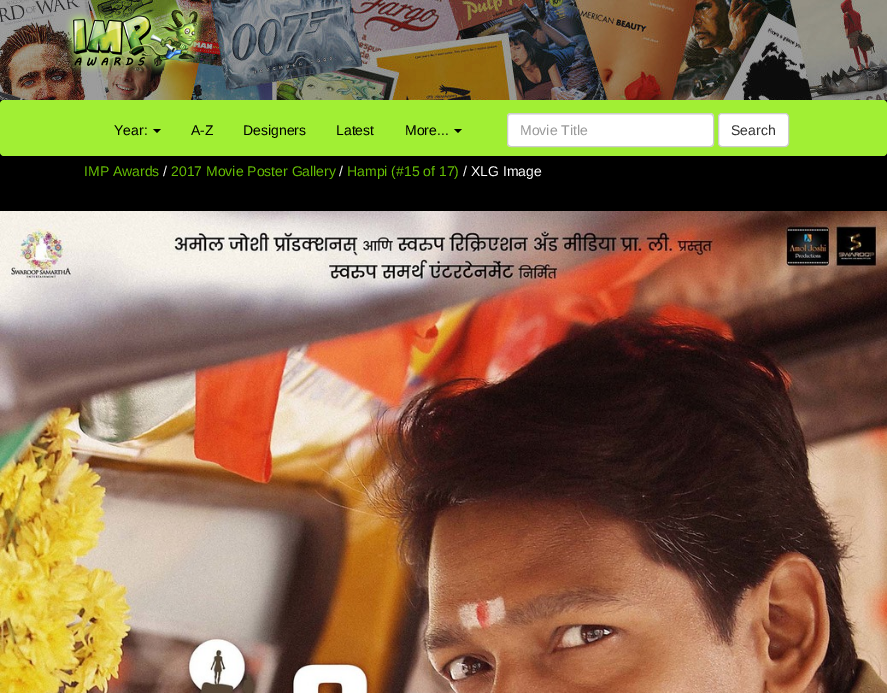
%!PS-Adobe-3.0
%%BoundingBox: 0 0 887 693
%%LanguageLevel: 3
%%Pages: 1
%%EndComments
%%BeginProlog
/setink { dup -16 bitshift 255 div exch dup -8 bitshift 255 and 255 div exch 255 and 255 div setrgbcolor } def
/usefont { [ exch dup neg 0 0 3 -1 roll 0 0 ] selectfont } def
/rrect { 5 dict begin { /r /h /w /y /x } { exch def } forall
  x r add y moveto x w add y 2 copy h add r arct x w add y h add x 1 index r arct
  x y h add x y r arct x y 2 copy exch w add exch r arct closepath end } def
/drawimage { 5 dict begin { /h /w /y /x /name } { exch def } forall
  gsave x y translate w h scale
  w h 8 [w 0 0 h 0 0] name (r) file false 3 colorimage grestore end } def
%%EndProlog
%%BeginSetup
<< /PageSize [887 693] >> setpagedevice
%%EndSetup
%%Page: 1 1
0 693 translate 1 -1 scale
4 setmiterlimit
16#000000 setink
0 0 887 693 rectfill
(img1.raw) 0 0 887 100 drawimage
(img2.raw) 65 2 141 72 drawimage
16#A1EF34 setink
0 100 887 56 4 rrect fill
/LiberationSans-Regular 14 usefont
16#000000 setink
114 135 moveto (Year:) show
153 129 moveto 161 129 lineto 157 133 lineto closepath fill
[
    [(A-Z) 191 135]
    [(Designers) 243 135]
    [(Latest) 336 135]
    [(More...) 405 135]
] { aload pop moveto show } forall
454 129 moveto 462 129 lineto 458 133 lineto closepath fill
16#FFFFFF setink
507 113 207 34 4 rrect fill
16#ECECEC setink
511 115 moveto 710 115 lineto 712 115 713 116 713 118 curveto 713 116 712 114 710 114 curveto 511 114 lineto 509 114 508 116 508 118 curveto 508 116 509 115 511 115 curveto closepath fill
16#CCCCCC setink
507.5 113.5 206 33 3.5 rrect stroke
16#999999 setink
520 135 moveto (Movie Title) show
16#FFFFFF setink
718.5 113.5 70 33 3.5 rrect gsave fill grestore
16#CCCCCC setink
stroke
16#333333 setink
731 135 moveto (Search) show
16#66BD04 setink
84 176 moveto (IMP Awards) show
16#FFFFFF setink
163 176 moveto (/) show
16#66BD04 setink
171 176 moveto (2017 Movie Poster Gallery) show
16#FFFFFF setink
339 176 moveto (/) show
16#66BD04 setink
347 176 moveto (Hampi \(#15 of 17\)) show
16#FFFFFF setink
463 176 moveto (/ XLG Image) show
(img3.raw) 0 211 887 482 drawimage
showpage
%%EOF
